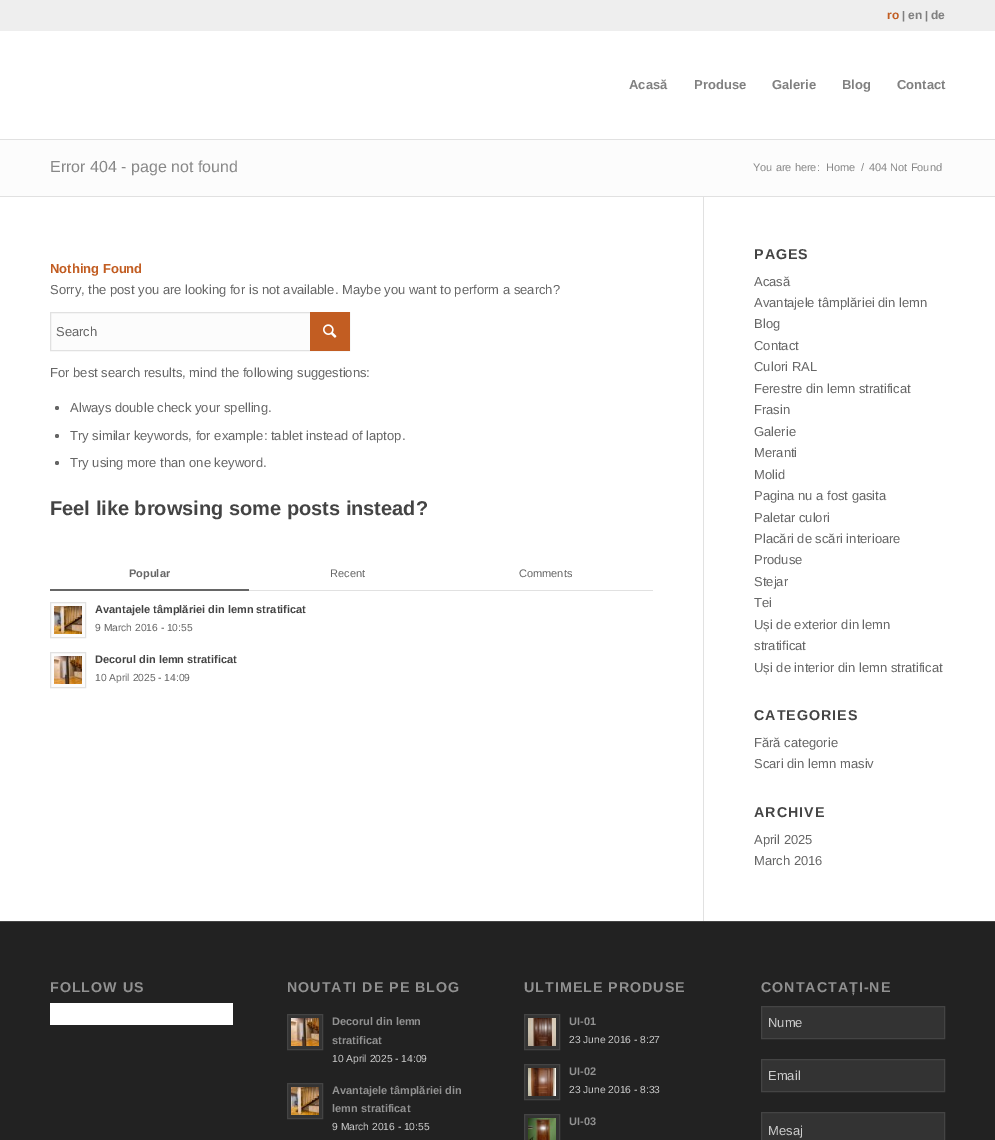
%!PS-Adobe-3.0
%%BoundingBox: 0 0 995 1140
%%LanguageLevel: 3
%%Pages: 1
%%EndComments
%%BeginProlog
/setink { dup -16 bitshift 255 div exch dup -8 bitshift 255 and 255 div exch 255 and 255 div setrgbcolor } def
/usefont { [ exch dup neg 0 0 3 -1 roll 0 0 ] selectfont } def
/disc { newpath 0 360 arc closepath } def
/drawimage { 5 dict begin { /h /w /y /x /name } { exch def } forall
  gsave x y translate w h scale
  w h 8 [w 0 0 h 0 0] name (r) file false 3 colorimage grestore end } def
%%EndProlog
%%BeginSetup
<< /PageSize [995 1140] >> setpagedevice
%%EndSetup
%%Page: 1 1
0 1140 translate 1 -1 scale
4 setmiterlimit
16#FFFFFF setink
0 0 995 1140 rectfill
16#EEEEEE setink
0 0 995 31 rectfill
/LiberationSans-Bold 12 usefont
16#C25D22 setink
887 19 moveto (ro) show
/LiberationSans-Bold 11 usefont
16#808080 setink
902 19 moveto (|) show
/LiberationSans-Bold 12 usefont
908 19 moveto (en) show
/LiberationSans-Bold 11 usefont
925 19 moveto (|) show
/LiberationSans-Bold 12 usefont
931 19 moveto (de) show
16#E1E1E1 setink
0 139 995 1 rectfill
/LiberationSans-Bold 13 usefont
16#808080 setink
[
    [(Acasă) 629 89]
    [(Produse) 694 89]
    [(Galerie) 772 89]
    [(Blog) 842 89]
    [(Contact) 897 89]
] { aload pop moveto show } forall
16#FCFCFC setink
0 140 995 56 rectfill
/LiberationSans-Regular 16 usefont
16#888888 setink
50 172 moveto (Error 404 - page not found) show
/LiberationSans-Regular 11 usefont
[
    [(You are here:) 753 171]
    [(Home) 826 171]
    [(/) 861 171]
    [(404 Not Found) 869 171]
] { aload pop moveto show } forall
16#E1E1E1 setink
0 196 995 1 rectfill
/LiberationSans-Bold 13 usefont
16#C25D22 setink
50 273 moveto (Nothing Found) show
/LiberationSans-Regular 13 usefont
16#666666 setink
50 294 moveto (Sorry, the post you are looking for is not available. Maybe you want to perform a search?) show
16#FCFCFC setink
51 313 259 37 rectfill
16#E1E1E1 setink
50.5 312.5 299 38 rectstroke
16#666666 setink
56 336 moveto (Search) show
16#C25D22 setink
310 312 40 39 rectfill
(img1.raw) 323 324 14 14 drawimage
16#666666 setink
50 377 moveto (For best search results, mind the following suggestions:) show
57 408 2 disc fill
70 412 moveto (Always double check your spelling.) show
57 436 2 disc fill
70 440 moveto (Try similar keywords, for example: tablet instead of laptop.) show
57 463 2 disc fill
70 467 moveto (Try using more than one keyword.) show
/LiberationSans-Bold 20 usefont
16#444444 setink
50 515 moveto (Feel like browsing some posts instead?) show
16#E1E1E1 setink
249 590 404 1 rectfill
16#666666 setink
50 589 199 2 rectfill
/LiberationSans-Bold 11 usefont
129 577 moveto (Popular) show
/LiberationSans-Regular 11 usefont
330 577 moveto (Recent) show
519 577 moveto (Comments) show
16#FCFCFC setink
50.5 602.5 moveto 85.5 602.5 lineto 85.5 637.5 lineto 50.5 637.5 lineto closepath gsave fill grestore
16#E1E1E1 setink
stroke
(img2.raw) 54 606 28 28 drawimage
/LiberationSans-Bold 11 usefont
16#444444 setink
95 613 moveto (Avantajele tâmplăriei din lemn stratificat) show
/LiberationSans-Regular 10.25 usefont
16#666666 setink
95 631 moveto (9 March 2016 - 10:55) show
16#FCFCFC setink
50.5 652.5 moveto 85.5 652.5 lineto 85.5 687.5 lineto 50.5 687.5 lineto closepath gsave fill grestore
16#E1E1E1 setink
stroke
(img3.raw) 54 656 28 28 drawimage
/LiberationSans-Bold 11 usefont
16#444444 setink
95 663 moveto (Decorul din lemn stratificat) show
/LiberationSans-Regular 10.25 usefont
16#666666 setink
95 681 moveto (10 April 2025 - 14:09) show
16#E1E1E1 setink
703 197 1 724 rectfill
/LiberationSans-Bold 14.25 usefont
16#444444 setink
754 259 moveto 1 0 (PAGES) ashow
/LiberationSans-Regular 13 usefont
16#666666 setink
[
    [(Acasă) 754 286]
    [(Avantajele tâmplăriei din lemn) 754 307]
    [(Blog) 754 328]
    [(Contact) 754 350]
    [(Culori RAL) 754 371]
    [(Ferestre din lemn stratificat) 754 393]
    [(Frasin) 754 414]
    [(Galerie) 754 436]
    [(Meranti) 754 457]
    [(Molid) 754 479]
    [(Pagina nu a fost gasita) 754 500]
    [(Paletar culori) 754 522]
    [(Placări de scări interioare) 754 543]
    [(Produse) 754 564]
    [(Stejar) 754 586]
    [(Tei) 754 607]
    [(Uși de exterior din lemn) 754 629]
    [(stratificat) 754 650]
    [(Uși de interior din lemn stratificat) 754 672]
] { aload pop moveto show } forall
/LiberationSans-Bold 14.25 usefont
16#444444 setink
754 720 moveto 1 0 (CATEGORIES) ashow
/LiberationSans-Regular 13 usefont
16#666666 setink
754 747 moveto (Fără categorie) show
754 768 moveto (Scari din lemn masiv) show
/LiberationSans-Bold 14.25 usefont
16#444444 setink
754 817 moveto 1 0 (ARCHIVE) ashow
/LiberationSans-Regular 13 usefont
16#666666 setink
754 844 moveto (April 2025) show
754 865 moveto (March 2016) show
16#222222 setink
0 922 995 218 rectfill
16#444444 setink
0 921 995 1 rectfill
/LiberationSans-Bold 14.25 usefont
16#919191 setink
50 992 moveto 1 0 (FOLLOW US) ashow
16#FFFFFF setink
50 1003 183 22 rectfill
16#919191 setink
287 992 moveto 1 0 (NOUTATI DE PE BLOG) ashow
16#333333 setink
287.5 1014.5 moveto 322.5 1014.5 lineto 322.5 1049.5 lineto 287.5 1049.5 lineto closepath gsave fill grestore
16#444444 setink
stroke
(img4.raw) 291 1018 28 28 drawimage
/LiberationSans-Bold 11 usefont
16#919191 setink
332 1025 moveto (Decorul din lemn) show
332 1044 moveto (stratificat) show
/LiberationSans-Regular 10.25 usefont
16#CCCCCC setink
332 1062 moveto (10 April 2025 - 14:09) show
16#333333 setink
287.5 1083.5 moveto 322.5 1083.5 lineto 322.5 1118.5 lineto 287.5 1118.5 lineto closepath gsave fill grestore
16#444444 setink
stroke
(img5.raw) 291 1087 28 28 drawimage
/LiberationSans-Bold 11 usefont
16#919191 setink
332 1094 moveto (Avantajele tâmplăriei din) show
332 1112 moveto (lemn stratificat) show
/LiberationSans-Regular 10.25 usefont
16#CCCCCC setink
332 1130 moveto (9 March 2016 - 10:55) show
/LiberationSans-Bold 14.25 usefont
16#919191 setink
524 992 moveto 1 0 (ULTIMELE PRODUSE) ashow
16#333333 setink
524.5 1014.5 moveto 559.5 1014.5 lineto 559.5 1049.5 lineto 524.5 1049.5 lineto closepath gsave fill grestore
16#444444 setink
stroke
(img6.raw) 528 1018 28 28 drawimage
/LiberationSans-Bold 11 usefont
16#919191 setink
569 1025 moveto (UI-01) show
/LiberationSans-Regular 10.25 usefont
16#CCCCCC setink
569 1043 moveto (23 June 2016 - 8:27) show
16#333333 setink
524.5 1064.5 moveto 559.5 1064.5 lineto 559.5 1099.5 lineto 524.5 1099.5 lineto closepath gsave fill grestore
16#444444 setink
stroke
(img7.raw) 528 1068 28 28 drawimage
/LiberationSans-Bold 11 usefont
16#919191 setink
569 1075 moveto (UI-02) show
/LiberationSans-Regular 10.25 usefont
16#CCCCCC setink
569 1093 moveto (23 June 2016 - 8:33) show
16#333333 setink
524.5 1114.5 moveto 559.5 1114.5 lineto 559.5 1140.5 lineto 524.5 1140.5 lineto closepath gsave fill grestore
16#444444 setink
stroke
(img8.raw) 528 1118 28 22 drawimage
/LiberationSans-Bold 11 usefont
16#919191 setink
569 1125 moveto (UI-03) show
/LiberationSans-Bold 14.25 usefont
761 992 moveto 1 0 (CONTACTAȚI-NE) ashow
16#333333 setink
761.5 1006.5 moveto 944.5 1006.5 lineto 944.5 1038.5 lineto 761.5 1038.5 lineto closepath gsave fill grestore
16#444444 setink
stroke
/LiberationSans-Regular 13 usefont
16#CCCCCC setink
768 1027 moveto (Nume) show
16#333333 setink
761.5 1059.5 moveto 944.5 1059.5 lineto 944.5 1091.5 lineto 761.5 1091.5 lineto closepath gsave fill grestore
16#444444 setink
stroke
16#CCCCCC setink
768 1080 moveto (Email) show
16#333333 setink
761.5 1112.5 moveto 944.5 1112.5 lineto 944.5 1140.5 lineto 761.5 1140.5 lineto closepath gsave fill grestore
16#444444 setink
stroke
16#CCCCCC setink
768 1135 moveto (Mesaj) show
showpage
%%EOF
